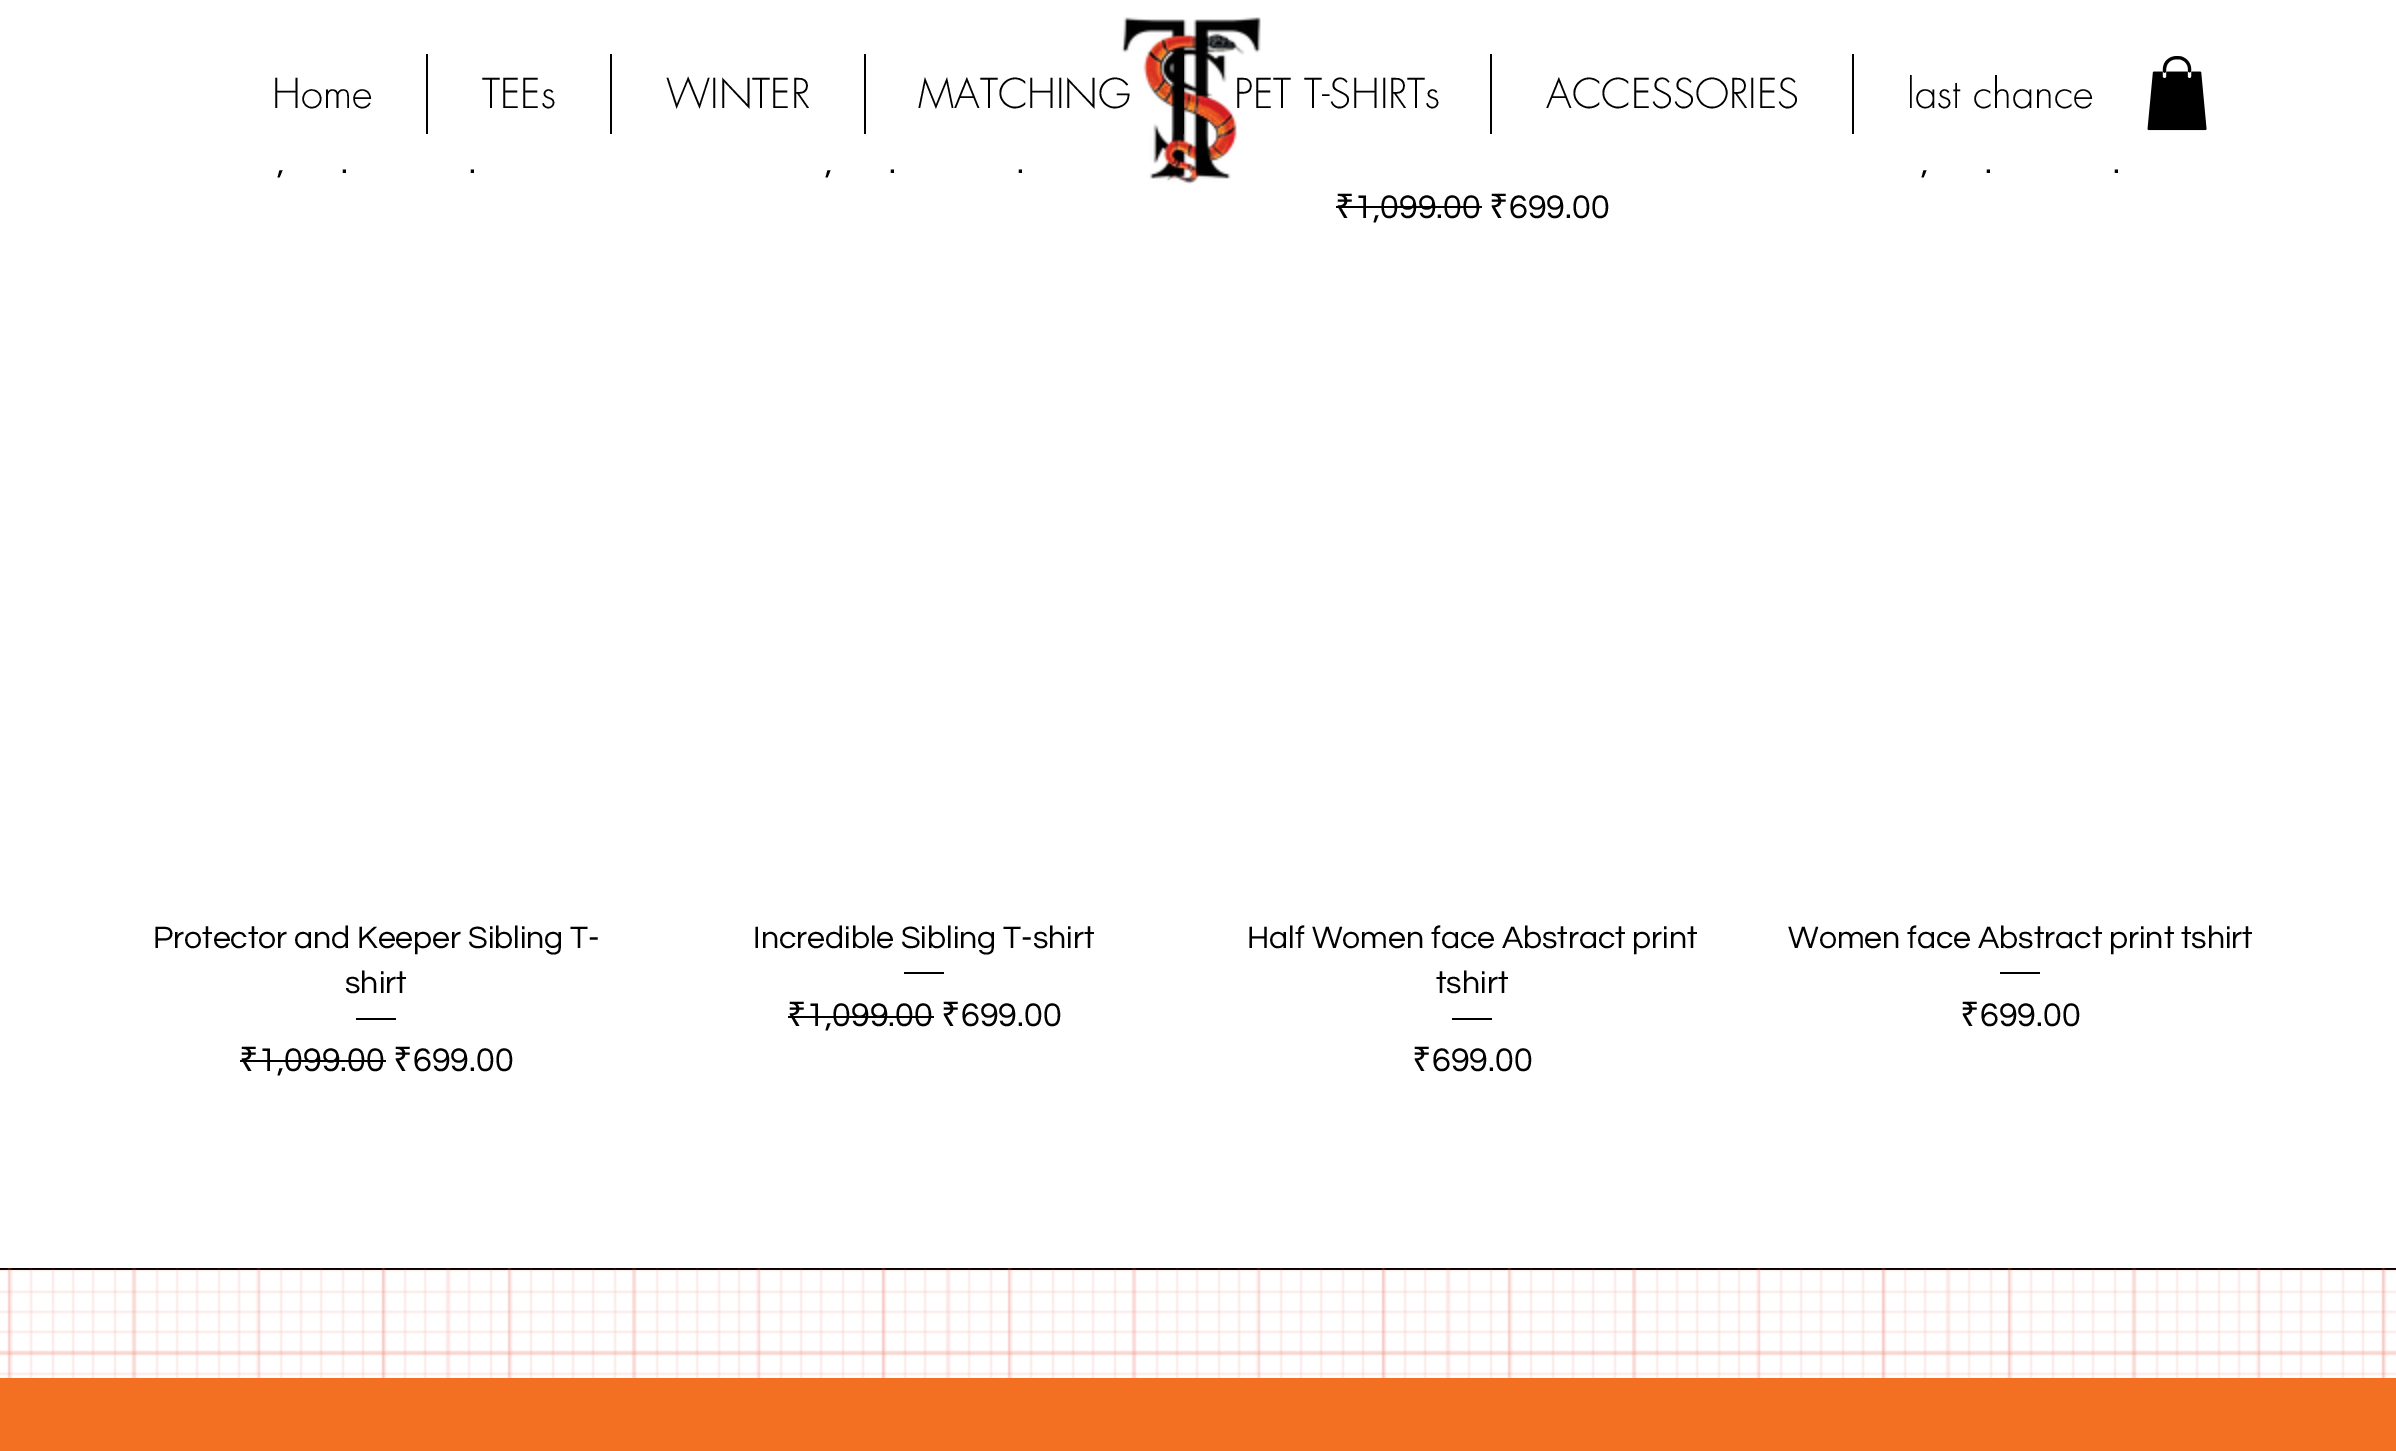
%!PS-Adobe-3.0
%%BoundingBox: 0 0 2396 1451
%%LanguageLevel: 3
%%Pages: 1
%%EndComments
%%BeginProlog
/setink { dup -16 bitshift 255 div exch dup -8 bitshift 255 and 255 div exch 255 and 255 div setrgbcolor } def
/usefont { [ exch dup neg 0 0 3 -1 roll 0 0 ] selectfont } def
/drawimage { 5 dict begin { /h /w /y /x /name } { exch def } forall
  gsave x y translate w h scale
  w h 8 [w 0 0 h 0 0] name (r) file false 3 colorimage grestore end } def
%%EndProlog
%%BeginSetup
<< /PageSize [2396 1451] >> setpagedevice
%%EndSetup
%%Page: 1 1
0 1451 translate 1 -1 scale
4 setmiterlimit
16#FFFFFF setink
0 0 2396 1451 rectfill
(img1.raw) 1121 17 140 168 drawimage
(img2.raw) 2147 56 60 75 drawimage
/futura-Light 40 usefont
16#000000 setink
272 108 moveto (Home) show
426 54 2 80 rectfill
482 108 moveto (TEEs) show
610 54 2 80 rectfill
666 108 moveto (WINTER) show
864 54 2 80 rectfill
918 108 moveto (MATCHING) show
1183 54 1 80 rectfill
1234 108 moveto (PET T-SHIRTs) show
1490 54 2 80 rectfill
1546 108 moveto (ACCESSORIES) show
1852 54 2 80 rectfill
1907 108 moveto (last chance) show
/Questrial-Regular 34 usefont
[
    [(,) 277 173]
    [(.) 341 173]
    [(.) 469 173]
    [(,) 825 173]
    [(.) 889 173]
    [(.) 1017 173]
    [(,) 1921 173]
    [(.) 1985 173]
    [(.) 2113 173]
] { aload pop moveto show } forall
/NotoSans-Regular 34 usefont
1335 218 moveto (₹) show
1336 206 146 2 rectfill
/Questrial-Regular 34 usefont
1354 218 moveto (1,099.00) show
/NotoSans-Regular 34 usefont
1489 218 moveto (₹) show
/Questrial-Regular 34 usefont
1509 218 moveto (699.00) show
/Questrial-Regular 32 usefont
153 948 moveto (Protector and Keeper Sibling T-) show
345 993 moveto (shirt) show
356 1018 40 2 rectfill
/NotoSans-Regular 34 usefont
239 1071 moveto (₹) show
/Questrial-Regular 34 usefont
258 1071 moveto (1,099.00) show
240 1060 146 2 rectfill
/NotoSans-Regular 34 usefont
393 1071 moveto (₹) show
/Questrial-Regular 34 usefont
413 1071 moveto (699.00) show
/Questrial-Regular 32 usefont
753 948 moveto (Incredible Sibling T-shirt) show
904 972 40 2 rectfill
/NotoSans-Regular 34 usefont
787 1026 moveto (₹) show
/Questrial-Regular 34 usefont
806 1026 moveto (1,099.00) show
788 1016 146 2 rectfill
/NotoSans-Regular 34 usefont
941 1026 moveto (₹) show
/Questrial-Regular 34 usefont
961 1026 moveto (699.00) show
/Questrial-Regular 32 usefont
1247 948 moveto (Half Women face Abstract print) show
1436 993 moveto (tshirt) show
1452 1018 40 2 rectfill
/NotoSans-Regular 34 usefont
1412 1071 moveto (₹) show
/Questrial-Regular 34 usefont
1432 1071 moveto (699.00) show
/Questrial-Regular 32 usefont
1788 948 moveto (Women face Abstract print tshirt) show
2000 972 40 2 rectfill
/NotoSans-Regular 34 usefont
1960 1026 moveto (₹) show
/Questrial-Regular 34 usefont
1980 1026 moveto (699.00) show
0 1268 2396 2 rectfill
(img3.raw) 0 1268 2396 110 drawimage
16#F37022 setink
0 1378 2396 73 rectfill
showpage
%%EOF
